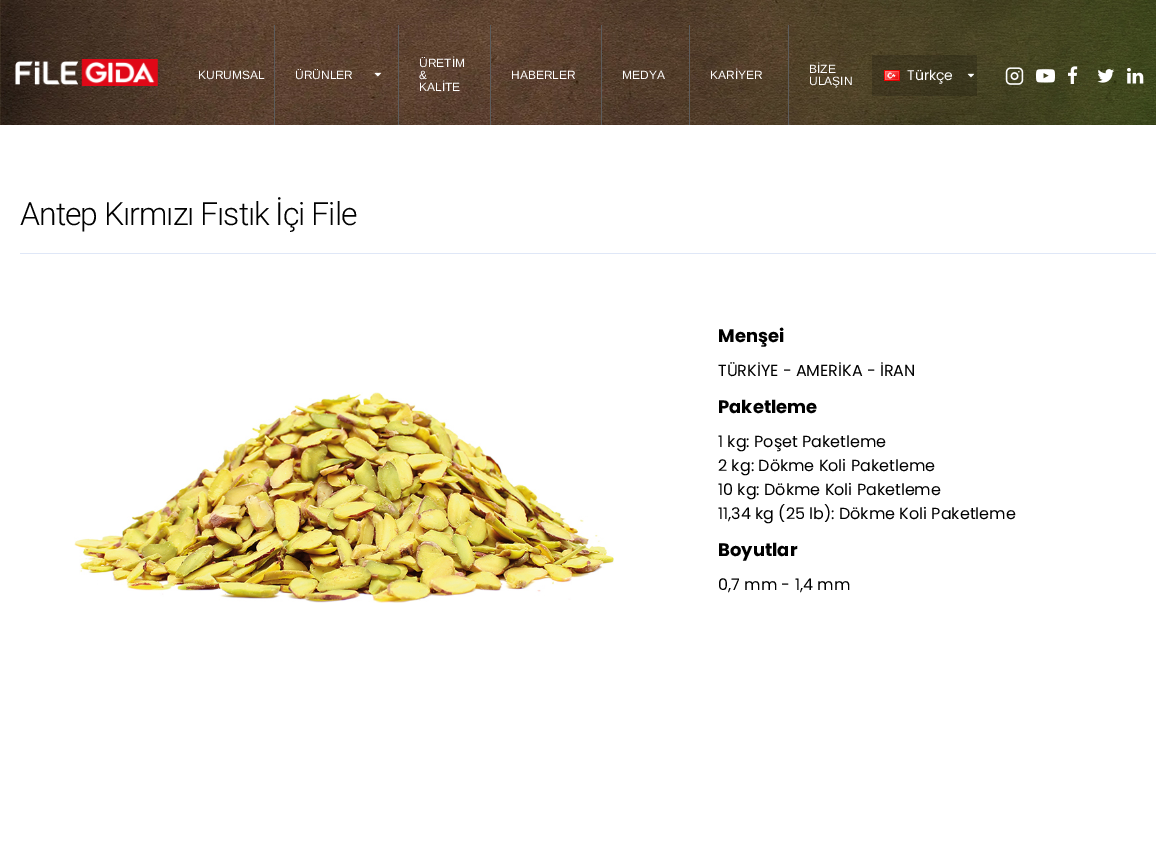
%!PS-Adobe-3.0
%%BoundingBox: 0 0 1156 858
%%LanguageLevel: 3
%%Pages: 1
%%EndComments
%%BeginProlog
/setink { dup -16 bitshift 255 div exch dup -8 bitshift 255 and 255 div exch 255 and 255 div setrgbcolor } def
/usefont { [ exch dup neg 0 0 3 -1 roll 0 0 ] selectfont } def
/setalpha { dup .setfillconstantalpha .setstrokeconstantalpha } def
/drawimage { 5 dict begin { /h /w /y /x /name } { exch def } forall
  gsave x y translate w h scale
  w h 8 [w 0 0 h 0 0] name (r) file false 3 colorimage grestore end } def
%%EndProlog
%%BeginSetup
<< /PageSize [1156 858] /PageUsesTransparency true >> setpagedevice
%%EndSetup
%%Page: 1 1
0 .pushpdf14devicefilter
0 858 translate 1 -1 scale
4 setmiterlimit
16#FFFFFF setink
0 0 1156 858 rectfill
(img1.raw) 0 0 1156 125 drawimage
(img2.raw) 15 59 143 27 drawimage
/LiberationSans-Regular 12 usefont
198 79 moveto (KURUMSAL) show
16#5D5D5D setink
274 25 1 100 rectfill
16#FFFFFF setink
295 79 moveto (ÜRÜNLER) show
(img3.raw) 374 72 7 5 drawimage
16#5D5D5D setink
398 25 1 100 rectfill
16#FFFFFF setink
[
    [(ÜRETİM) 419 67]
    [(&) 419 79]
    [(KALİTE) 419 91]
] { aload pop moveto show } forall
16#5D5D5D setink
490 25 1 100 rectfill
16#FFFFFF setink
511 79 moveto (HABERLER) show
16#5D5D5D setink
601 25 1 100 rectfill
16#FFFFFF setink
622 79 moveto (MEDYA) show
16#5D5D5D setink
689 25 1 100 rectfill
16#FFFFFF setink
710 79 moveto (KARİYER) show
16#5D5D5D setink
788 25 1 100 rectfill
16#FFFFFF setink
809 73 moveto (BİZE) show
809 85 moveto (ULAŞIN) show
0.18 setalpha
16#000000 setink
872 55 105 41 rectfill
1 setalpha
(img4.raw) 884 70 16 11 drawimage
/Poppins-Regular 14 usefont
16#FFFFFF setink
907 80 moveto (Türkçe) show
(img5.raw) 967 73 7 5 drawimage
(img6.raw) 1005 67 19 18 drawimage
(img7.raw) 1036 69 19 14 drawimage
(img8.raw) 1068 66 10 18 drawimage
(img9.raw) 1097 69 17 14 drawimage
(img10.raw) 1127 68 17 16 drawimage
/Roboto-Light 32 usefont
16#000000 setink
20 225 moveto -1 0 (Antep Kırmızı Fıstık İçi File) ashow
16#DFE7F7 setink
20 253 1136 1 rectfill
(img11.raw) 74 392 540 211 drawimage
/Poppins-Bold 18 usefont
16#000000 setink
718 342 moveto (Menşei) show
/Poppins-Regular 16 usefont
718 376 moveto (TÜRKİYE - AMERİKA - İRAN) show
/Poppins-Bold 18 usefont
718 413 moveto (Paketleme) show
/Poppins-Regular 16 usefont
[
    [(1 kg: Poşet Paketleme) 718 447]
    [(2 kg: Dökme Koli Paketleme) 718 471]
    [(10 kg: Dökme Koli Paketleme) 718 495]
    [(11,34 kg \(25 lb\): Dökme Koli Paketleme) 718 519]
] { aload pop moveto show } forall
/Poppins-Bold 18 usefont
718 556 moveto (Boyutlar) show
/Poppins-Regular 16 usefont
718 590 moveto (0,7 mm - 1,4 mm) show
.poppdf14devicefilter showpage
%%EOF
